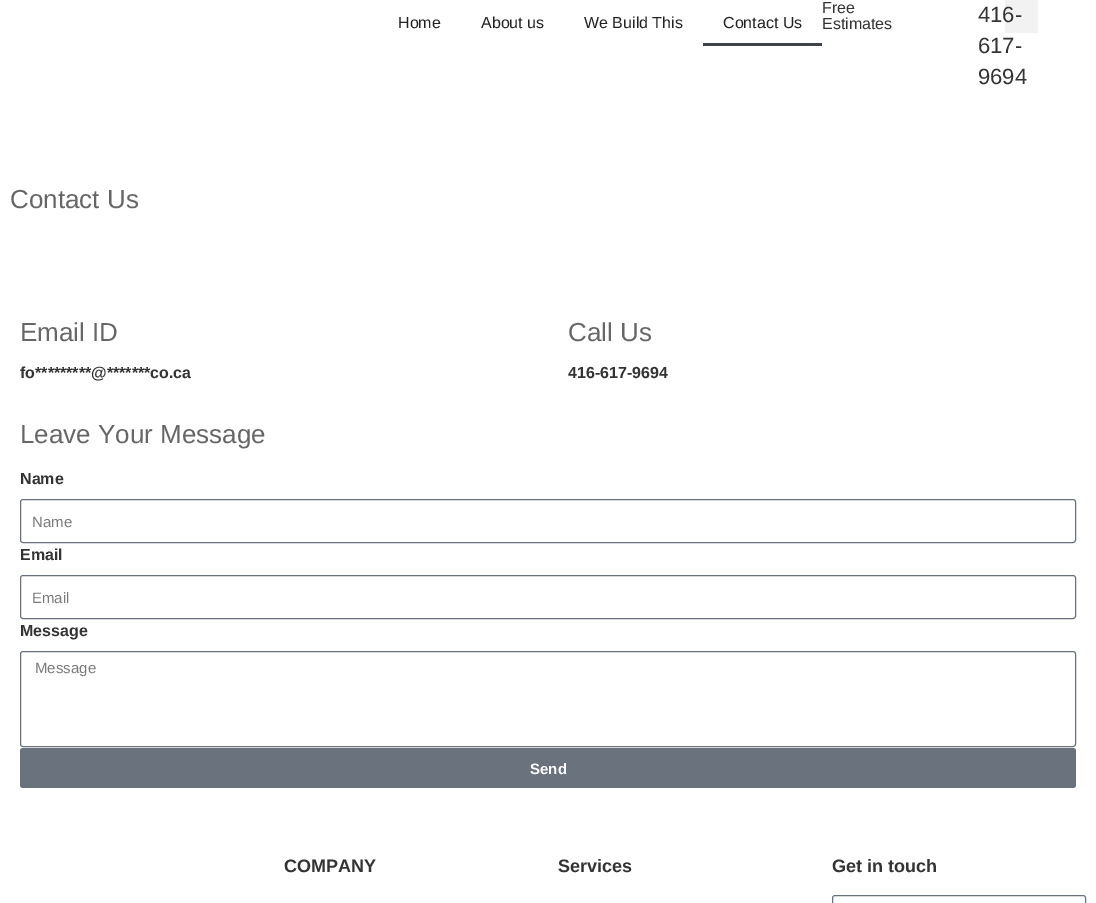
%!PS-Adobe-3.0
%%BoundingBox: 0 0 1096 903
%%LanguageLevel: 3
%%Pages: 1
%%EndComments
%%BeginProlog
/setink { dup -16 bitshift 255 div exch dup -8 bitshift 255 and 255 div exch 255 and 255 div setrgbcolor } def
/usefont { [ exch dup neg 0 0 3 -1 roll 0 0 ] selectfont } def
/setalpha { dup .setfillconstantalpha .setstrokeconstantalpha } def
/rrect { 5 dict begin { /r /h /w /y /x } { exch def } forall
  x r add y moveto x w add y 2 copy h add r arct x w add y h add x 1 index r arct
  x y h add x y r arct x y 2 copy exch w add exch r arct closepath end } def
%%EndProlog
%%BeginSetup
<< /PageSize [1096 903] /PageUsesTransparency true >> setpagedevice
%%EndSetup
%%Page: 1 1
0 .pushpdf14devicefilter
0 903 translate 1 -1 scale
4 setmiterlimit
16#FFFFFF setink
0 0 1096 903 rectfill
/LiberationSans-Regular 16 usefont
16#222222 setink
[
    [(Home) 398 28]
    [(About us) 481 28]
    [(We Build This) 584 28]
    [(Contact Us) 723 28]
] { aload pop moveto show } forall
16#3F444B setink
703 43 119 3 rectfill
16#333333 setink
822 13 moveto (Free) show
822 29 moveto (Estimates) show
0.05 setalpha
16#000000 setink
1005 0 33 33 rectfill
/LiberationSans-Regular 22 usefont
1 setalpha
16#333333 setink
[
    [(416-) 978 22]
    [(617-) 978 53]
    [(9694) 978 84]
] { aload pop moveto show } forall
/LiberationSans-Regular 26 usefont
16#666666 setink
10 208 moveto (Contact Us) show
20 341 moveto (Email ID) show
/LiberationSans-Bold 16 usefont
16#333333 setink
[
    [(fo*********) 20 378]
    [(@*******) 91 378]
    [(co.ca) 150 378]
] { aload pop moveto show } forall
/LiberationSans-Regular 26 usefont
16#666666 setink
568 341 moveto (Call Us) show
/LiberationSans-Bold 16 usefont
16#333333 setink
568 378 moveto (416-617-9694) show
/LiberationSans-Regular 26 usefont
16#666666 setink
20 443 moveto (Leave Your Message) show
/LiberationSans-Bold 16 usefont
16#333333 setink
20 484 moveto (Name) show
16#69727D setink
20.5 499.5 1055 43 2.5 rrect stroke
/LiberationSans-Regular 15 usefont
16#797A7C setink
32 527 moveto (Name) show
/LiberationSans-Bold 16 usefont
16#333333 setink
20 560 moveto (Email) show
16#69727D setink
20.5 575.5 1055 43 2.5 rrect stroke
/LiberationSans-Regular 15 usefont
16#797A7C setink
32 603 moveto (Email) show
/LiberationSans-Bold 16 usefont
16#333333 setink
20 636 moveto (Message) show
16#69727D setink
20.5 651.5 1055 95 2.5 rrect stroke
/LiberationSans-Regular 15 usefont
16#797A7C setink
35 673 moveto (Message) show
16#69727D setink
20 748 1056 40 3 rrect fill
/LiberationSans-Bold 15 usefont
16#FFFFFF setink
530 774 moveto (Send) show
/LiberationSans-Bold 18 usefont
16#333333 setink
[
    [(COMPANY) 284 872]
    [(Services) 558 872]
    [(Get in touch) 832 872]
] { aload pop moveto show } forall
16#69727D setink
832.5 895.5 253 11 2.5 rrect stroke
.poppdf14devicefilter showpage
%%EOF
